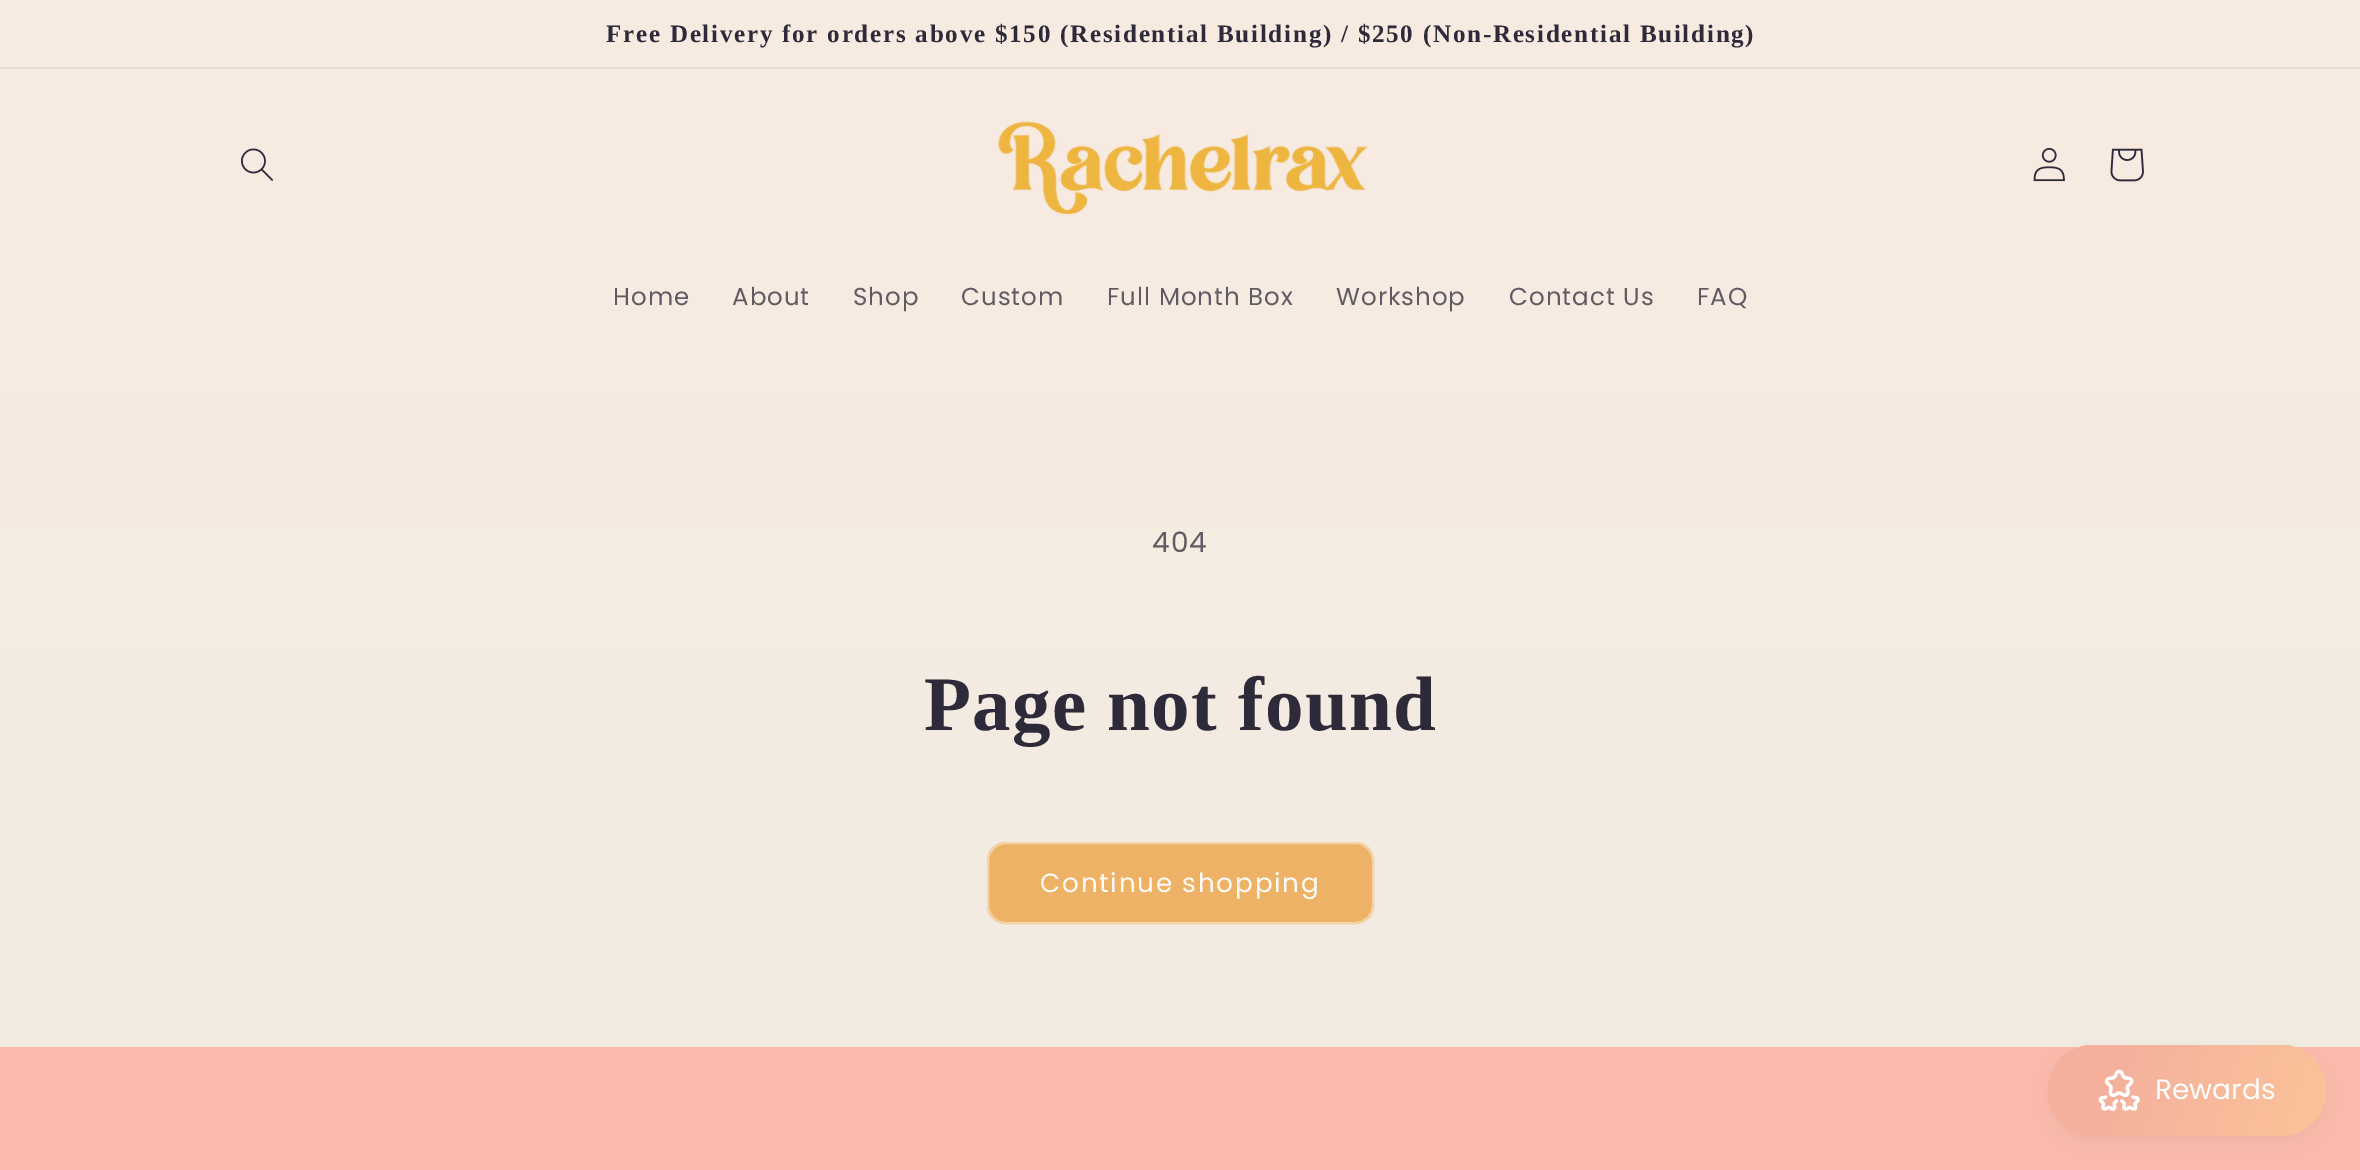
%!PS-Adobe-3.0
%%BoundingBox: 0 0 2360 1170
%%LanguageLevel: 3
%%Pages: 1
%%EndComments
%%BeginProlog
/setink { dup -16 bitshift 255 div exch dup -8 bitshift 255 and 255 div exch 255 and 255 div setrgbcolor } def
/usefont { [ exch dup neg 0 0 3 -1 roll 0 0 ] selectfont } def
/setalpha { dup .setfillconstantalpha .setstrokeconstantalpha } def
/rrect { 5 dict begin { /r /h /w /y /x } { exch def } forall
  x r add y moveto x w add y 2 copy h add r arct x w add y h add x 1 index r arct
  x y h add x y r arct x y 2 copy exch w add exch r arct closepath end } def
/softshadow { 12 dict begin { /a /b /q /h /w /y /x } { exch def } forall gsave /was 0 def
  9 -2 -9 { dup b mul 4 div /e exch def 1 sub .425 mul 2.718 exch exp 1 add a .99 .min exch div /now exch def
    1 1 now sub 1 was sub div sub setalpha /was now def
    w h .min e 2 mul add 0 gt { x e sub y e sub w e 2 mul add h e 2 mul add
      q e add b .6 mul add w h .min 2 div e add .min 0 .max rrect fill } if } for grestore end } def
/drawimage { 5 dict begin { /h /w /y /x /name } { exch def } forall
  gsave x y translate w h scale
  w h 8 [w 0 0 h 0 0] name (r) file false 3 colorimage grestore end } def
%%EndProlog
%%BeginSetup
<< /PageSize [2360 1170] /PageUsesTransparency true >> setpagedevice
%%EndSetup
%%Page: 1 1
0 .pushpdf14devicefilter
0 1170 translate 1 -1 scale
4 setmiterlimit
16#FFFFFF setink
0 0 2360 1170 rectfill
gsave 0 0 moveto 2360 0 lineto 2360 1047 lineto 0 1047 lineto closepath clip newpath
<< /ShadingType 2 /ColorSpace /DeviceRGB /Coords [1180 0 1180 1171] /Extend [true true] /Function << /FunctionType 2 /Domain [0 1] /C0 [0.973 0.918 0.882] /C1 [0.945 0.922 0.886] /N 1 >> >> shfill grestore
16#E8DBD4 setink
0 67 2360 2 rectfill
/LiberationSerif-Bold 25.05 usefont
16#2E2A39 setink
606 42 moveto 1.75 0 (Free Delivery for orders above $150 \(Residential Building\) / $250 \(Non-Residential Building\)) ashow
(img1.raw) 241 148 32 33 drawimage
(img2.raw) 998 121 370 94 drawimage
(img3.raw) 2033 147 32 35 drawimage
(img4.raw) 2110 148 34 34 drawimage
/Poppins-Regular 24.5 usefont
16#605A63 setink
613 305 moveto 1 0 (Home) ashow
732 305 moveto 1 0 (About) ashow
853 305 moveto 1 0 (Shop) ashow
961 305 moveto 1 0 (Custom) ashow
1107 305 moveto 1 0 (Full Month Box) ashow
1336 305 moveto 1 0 (Workshop) ashow
1509 305 moveto 1 0 (Contact Us) ashow
1697 305 moveto 1 0 (FAQ) ashow
/Poppins-Regular 28 usefont
1152 552 moveto 1 0 (404) ashow
/LiberationSerif-Bold 77 usefont
16#2E2A39 setink
924 730 moveto 1.2 0 (Page not found) ashow
16#EDB266 setink
987 842 387 82 19 rrect fill
2 setlinewidth
988 843 385 80 18 rrect stroke
0.45 setalpha
16#FDFBF7 setink
988 843 385 80 18 rrect stroke
/Poppins-Regular 26.25 usefont
1 setalpha
1040 892 moveto 1.75 0 (Continue shopping) ashow
16#FAB9AA setink
0 1047 2360 123 rectfill
16#444444 setink
2051 1055 271 84 42 7 0.08 softshadow
gsave 2048 1045 278 91 45.5 rrect clip newpath
<< /ShadingType 2 /ColorSpace /DeviceRGB /Coords [2049 1041 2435 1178] /Extend [true true] /Function << /FunctionType 3 /Domain [0 1] /Functions [<< /FunctionType 2 /Domain [0 1] /C0 [0.957 0.69 0.612] /C1 [0.957 0.69 0.612] /N 1 >> << /FunctionType 2 /Domain [0 1] /C0 [0.957 0.69 0.612] /C1 [1 0.812 0.596] /N 1 >>] /Bounds [0.17] /Encode [0 1 0 1] >> >> shfill grestore
(img5.raw) 2098 1069 42 42 drawimage
/Poppins-Regular 28 usefont
16#FFFFFF setink
2155 1099 moveto (Rewards) show
.poppdf14devicefilter showpage
%%EOF
